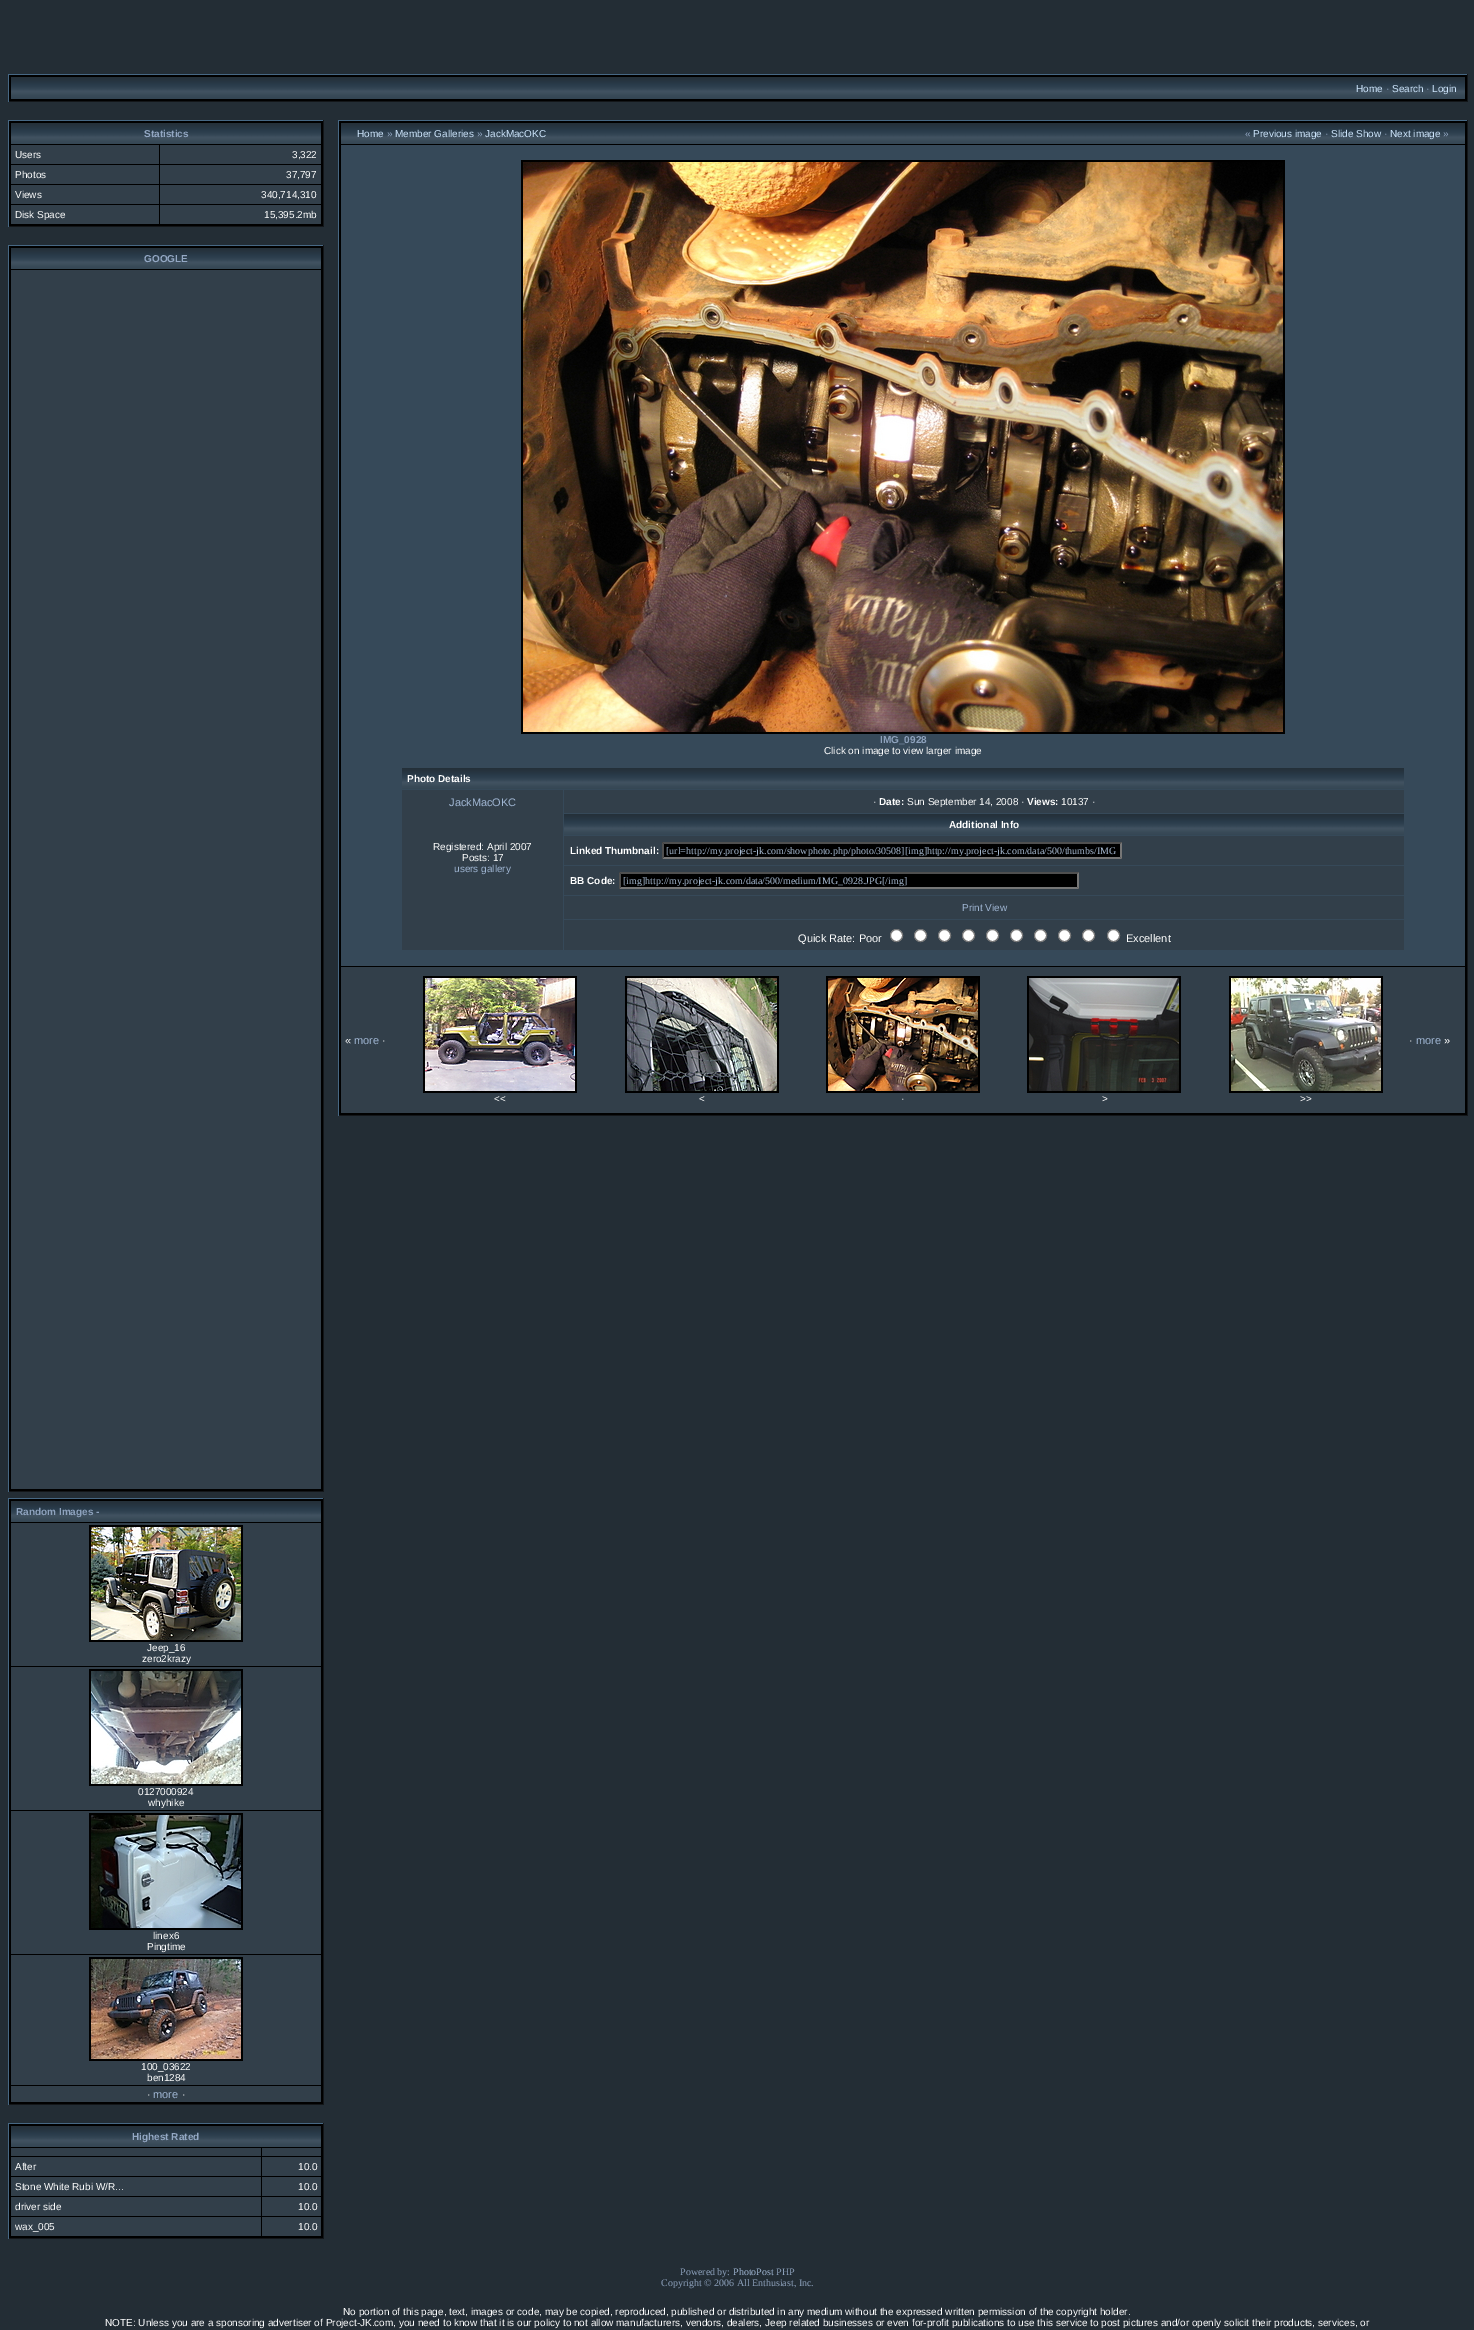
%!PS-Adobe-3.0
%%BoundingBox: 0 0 1474 2330
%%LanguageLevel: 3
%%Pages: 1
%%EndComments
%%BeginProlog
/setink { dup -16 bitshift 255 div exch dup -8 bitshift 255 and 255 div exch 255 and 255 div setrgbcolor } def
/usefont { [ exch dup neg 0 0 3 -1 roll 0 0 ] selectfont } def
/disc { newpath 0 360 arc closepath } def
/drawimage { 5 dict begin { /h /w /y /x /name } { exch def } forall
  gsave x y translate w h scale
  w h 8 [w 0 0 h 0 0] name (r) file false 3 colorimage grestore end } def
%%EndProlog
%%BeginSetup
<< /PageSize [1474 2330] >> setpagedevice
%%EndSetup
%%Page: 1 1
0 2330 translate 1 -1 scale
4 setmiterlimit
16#232D35 setink
0 0 1474 2330 rectfill
[
    [9 75 1458 26 16#000000]
    [8 74 1460 1 16#476884]
    [1467 74 1 28 16#131619]
    [8 101 1460 1 16#131619]
    [8 74 1 28 16#476884]
] { aload pop setink rectfill } forall
(img1.raw) 11 77 1454 22 drawimage
/LiberationSans-Regular 10 usefont
16#CDE5FC setink
1356 92 moveto (Home) show
16#94A8C4 setink
1386 92 moveto (·) show
16#CDE5FC setink
1392 92 moveto (Search) show
16#94A8C4 setink
1426 92 moveto (·) show
16#CDE5FC setink
1432 92 moveto (Login) show
[
    [9 121 314 105 16#000000]
    [8 120 316 1 16#476884]
    [323 120 1 107 16#131619]
    [8 226 316 1 16#131619]
    [8 120 1 107 16#476884]
] { aload pop setink rectfill } forall
(img2.raw) 11 123 310 21 drawimage
/LiberationSans-Bold 10 usefont
16#94A8C4 setink
144 137 moveto (Statistics) show
16#323F4A setink
11 145 148 19 rectfill
/LiberationSans-Regular 10 usefont
16#FFFFFF setink
15 158 moveto (Users) show
16#323F4A setink
160 145 161 19 rectfill
16#FFFFFF setink
292 158 moveto (3,322) show
16#323F4A setink
11 165 148 19 rectfill
16#FFFFFF setink
15 178 moveto (Photos) show
16#323F4A setink
160 165 161 19 rectfill
16#FFFFFF setink
286 178 moveto (37,797) show
16#323F4A setink
11 185 148 19 rectfill
16#FFFFFF setink
15 198 moveto (Views) show
16#323F4A setink
160 185 161 19 rectfill
16#FFFFFF setink
261 198 moveto (340,714,310) show
16#323F4A setink
11 205 148 19 rectfill
16#FFFFFF setink
15 218 moveto (Disk Space) show
16#323F4A setink
160 205 161 19 rectfill
16#FFFFFF setink
264 218 moveto (15,395.2mb) show
[
    [9 246 314 1245 16#000000]
    [8 245 316 1 16#476884]
    [323 245 1 1247 16#131619]
    [8 1491 316 1 16#131619]
    [8 245 1 1247 16#476884]
] { aload pop setink rectfill } forall
(img2.raw) 11 248 310 21 drawimage
/LiberationSans-Bold 10 usefont
16#94A8C4 setink
144 262 moveto (GOOGLE) show
[
    [11 270 310 1219 16#323F4A]
    [9 1499 314 605 16#000000]
    [8 1498 316 1 16#476884]
    [323 1498 1 607 16#131619]
    [8 2104 316 1 16#131619]
    [8 1498 1 607 16#476884]
] { aload pop setink rectfill } forall
(img2.raw) 11 1501 310 21 drawimage
16#8EA2BD setink
16 1515 moveto (Random Images -) show
16#323F4A setink
11 1523 310 143 rectfill
16#000000 setink
89 1525 154 117 rectfill
(img3.raw) 91 1527 150 113 drawimage
/LiberationSans-Regular 10 usefont
16#FFFFFF setink
147 1651 moveto (Jeep_16) show
142 1662 moveto (zero2krazy) show
16#323F4A setink
11 1667 310 143 rectfill
16#000000 setink
89 1669 154 117 rectfill
(img4.raw) 91 1671 150 113 drawimage
16#FFFFFF setink
138 1795 moveto (0127000924) show
148 1806 moveto (whyhike) show
16#323F4A setink
11 1811 310 143 rectfill
16#000000 setink
89 1813 154 117 rectfill
(img5.raw) 91 1815 150 113 drawimage
16#FFFFFF setink
153 1939 moveto (linex6) show
147 1950 moveto (Pingtime) show
16#323F4A setink
11 1955 310 130 rectfill
16#000000 setink
89 1957 154 104 rectfill
(img6.raw) 91 1959 150 100 drawimage
16#FFFFFF setink
141 2070 moveto (100_03622) show
147 2081 moveto (ben1284) show
16#323F4A setink
11 2086 310 16 rectfill
/LiberationSans-Regular 11 usefont
16#FFFFFF setink
147 2098 moveto (·) show
16#A0B6D3 setink
153 2098 moveto (more) show
16#FFFFFF setink
182 2098 moveto (·) show
[
    [9 2124 314 114 16#000000]
    [8 2123 316 1 16#476884]
    [323 2123 1 116 16#131619]
    [8 2238 316 1 16#131619]
    [8 2123 1 116 16#476884]
] { aload pop setink rectfill } forall
(img2.raw) 11 2126 310 21 drawimage
/LiberationSans-Bold 10 usefont
16#94A8C4 setink
132 2140 moveto (Highest Rated) show
[
    [11 2148 250 8 16#323F4A]
    [262 2148 59 8 16#323F4A]
    [11 2157 250 19 16#323F4A]
] { aload pop setink rectfill } forall
/LiberationSans-Regular 10 usefont
16#FFFFFF setink
15 2170 moveto (After) show
16#323F4A setink
262 2157 59 19 rectfill
16#FFFFFF setink
298 2170 moveto (10.0) show
16#323F4A setink
11 2177 250 19 rectfill
16#FFFFFF setink
15 2190 moveto (Stone White Rubi W/R...) show
16#323F4A setink
262 2177 59 19 rectfill
16#FFFFFF setink
298 2190 moveto (10.0) show
16#323F4A setink
11 2197 250 19 rectfill
16#FFFFFF setink
15 2210 moveto (driver side) show
16#323F4A setink
262 2197 59 19 rectfill
16#FFFFFF setink
298 2210 moveto (10.0) show
16#323F4A setink
11 2217 250 19 rectfill
16#FFFFFF setink
15 2230 moveto (wax_005) show
16#323F4A setink
262 2217 59 19 rectfill
16#FFFFFF setink
298 2230 moveto (10.0) show
[
    [339 121 1128 994 16#000000]
    [338 120 1130 1 16#476884]
    [1467 120 1 996 16#131619]
    [338 1115 1130 1 16#131619]
    [338 120 1 996 16#476884]
] { aload pop setink rectfill } forall
(img7.raw) 341 123 1124 21 drawimage
16#CDE5FC setink
357 137 moveto (Home) show
16#94A8C4 setink
387 137 moveto (») show
16#CDE5FC setink
395 137 moveto (Member Galleries) show
16#94A8C4 setink
477 137 moveto (») show
16#CDE5FC setink
485 137 moveto (JackMacOKC) show
16#94A8C4 setink
1245 137 moveto («) show
16#CDE5FC setink
1253 137 moveto (Previous image) show
16#94A8C4 setink
1325 137 moveto (·) show
16#CDE5FC setink
1331 137 moveto (Slide Show) show
16#94A8C4 setink
1384 137 moveto (·) show
16#CDE5FC setink
1390 137 moveto (Next image) show
16#94A8C4 setink
1443 137 moveto (») show
16#364959 setink
341 145 1124 821 rectfill
16#000000 setink
521 160 764 574 rectfill
(img8.raw) 523 162 760 570 drawimage
/LiberationSans-Bold 10 usefont
16#8EA2BD setink
880 743 moveto (IMG_0928) show
/LiberationSans-Regular 10 usefont
16#FFFFFF setink
824 754 moveto (Click on image to view larger image) show
(img9.raw) 402 768 1002 21 drawimage
/LiberationSans-Bold 10 usefont
407 782 moveto (Photo Details) show
16#323F4A setink
402 790 161 160 rectfill
/LiberationSans-Regular 11 usefont
16#A0B6D3 setink
449 806 moveto (JackMacOKC) show
/LiberationSans-Regular 10 usefont
16#FFFFFF setink
433 850 moveto (Registered: April 2007) show
462 861 moveto (Posts: 17) show
16#A0B6D3 setink
454 872 moveto (users gallery) show
16#323F4A setink
564 790 840 23 rectfill
16#FFFFFF setink
873 805 moveto (·) show
/LiberationSans-Bold 10 usefont
879 805 moveto (Date:) show
/LiberationSans-Regular 10 usefont
907 805 moveto (Sun September 14, 2008 ·) show
/LiberationSans-Bold 10 usefont
1027 805 moveto (Views:) show
/LiberationSans-Regular 10 usefont
1061 805 moveto (10137 ·) show
(img10.raw) 564 814 840 21 drawimage
/LiberationSans-Bold 10 usefont
949 828 moveto (Additional Info) show
16#323F4A setink
564 836 840 29 rectfill
16#FFFFFF setink
570 854 moveto (Linked Thumbnail:) show
16#000000 setink
662 842 460 17 rectfill
16#4F4F4F setink
662 842 moveto 1122 842 lineto 1120 844 lineto 664 844 lineto closepath fill
16#767676 setink
1122 842 moveto 1122 859 lineto 1120 857 lineto 1120 844 lineto closepath fill
1122 859 moveto 662 859 lineto 664 857 lineto 1120 857 lineto closepath fill
16#4F4F4F setink
662 859 moveto 662 842 lineto 664 844 lineto 664 857 lineto closepath fill
gsave
666 845 452 11 rectclip
/LiberationSerif-Regular 10 usefont
16#A7BAD1 setink
666 854 moveto ([url=http://my.project-jk.com/showphoto.php/photo/30508][img]http://my.project-jk.com/data/500/thumbs/IMG) show
grestore
16#323F4A setink
564 866 840 29 rectfill
16#FFFFFF setink
570 884 moveto (BB Code:) show
16#000000 setink
619 872 460 17 rectfill
16#4F4F4F setink
619 872 moveto 1079 872 lineto 1077 874 lineto 621 874 lineto closepath fill
16#767676 setink
1079 872 moveto 1079 889 lineto 1077 887 lineto 1077 874 lineto closepath fill
1079 889 moveto 619 889 lineto 621 887 lineto 1077 887 lineto closepath fill
16#4F4F4F setink
619 889 moveto 619 872 lineto 621 874 lineto 621 887 lineto closepath fill
gsave
623 875 452 11 rectclip
/LiberationSerif-Regular 10 usefont
16#A7BAD1 setink
623 884 moveto ([img]http://my.project-jk.com/data/500/medium/IMG_0928.JPG[/img]) show
grestore
16#323F4A setink
564 896 840 23 rectfill
/LiberationSans-Regular 10 usefont
16#A0B6D3 setink
962 911 moveto (Print View) show
16#323F4A setink
564 920 840 30 rectfill
/LiberationSans-Regular 11 usefont
16#FFFFFF setink
798 942 moveto (Quick Rate: Poor) show
896.5 935.5 6 disc gsave fill grestore
16#767676 setink
stroke
16#FFFFFF setink
920.5 935.5 6 disc gsave fill grestore
16#767676 setink
stroke
16#FFFFFF setink
944.5 935.5 6 disc gsave fill grestore
16#767676 setink
stroke
16#FFFFFF setink
968.5 935.5 6 disc gsave fill grestore
16#767676 setink
stroke
16#FFFFFF setink
992.5 935.5 6 disc gsave fill grestore
16#767676 setink
stroke
16#FFFFFF setink
1016.5 935.5 6 disc gsave fill grestore
16#767676 setink
stroke
16#FFFFFF setink
1040.5 935.5 6 disc gsave fill grestore
16#767676 setink
stroke
16#FFFFFF setink
1064.5 935.5 6 disc gsave fill grestore
16#767676 setink
stroke
16#FFFFFF setink
1088.5 935.5 6 disc gsave fill grestore
16#767676 setink
stroke
16#FFFFFF setink
1113.5 935.5 6 disc gsave fill grestore
16#767676 setink
stroke
16#FFFFFF setink
1126 942 moveto (Excellent) show
16#323F4A setink
341 967 1124 146 rectfill
16#FFFFFF setink
345 1044 moveto («) show
16#A0B6D3 setink
354 1044 moveto (more) show
16#FFFFFF setink
382 1044 moveto (·) show
1409 1044 moveto (·) show
16#A0B6D3 setink
1416 1044 moveto (more) show
16#FFFFFF setink
1444 1044 moveto (») show
16#000000 setink
423 976 154 117 rectfill
(img11.raw) 425 978 150 113 drawimage
/LiberationSans-Regular 10 usefont
16#FFFFFF setink
494 1102 moveto (<<) show
16#000000 setink
625 976 154 117 rectfill
(img12.raw) 627 978 150 113 drawimage
16#FFFFFF setink
699 1102 moveto (<) show
16#000000 setink
826 976 154 117 rectfill
(img13.raw) 828 978 150 113 drawimage
16#FFFFFF setink
901 1102 moveto (·) show
16#000000 setink
1027 976 154 117 rectfill
(img14.raw) 1029 978 150 113 drawimage
16#FFFFFF setink
1102 1102 moveto (>) show
16#000000 setink
1229 976 154 117 rectfill
(img15.raw) 1231 978 150 113 drawimage
16#FFFFFF setink
1300 1102 moveto (>>) show
/LiberationSerif-Regular 10 usefont
16#8EA2BD setink
680 2275 moveto (Powered by:) show
16#A0B6D3 setink
733 2275 moveto (PhotoPost) show
16#8EA2BD setink
776 2275 moveto (PHP) show
661 2286 moveto (Copyright © 2006 All Enthusiast, Inc.) show
/LiberationSans-Regular 10 usefont
16#FFFFFF setink
343 2315 moveto (No portion of this page, text, images or code, may be copied, reproduced, published or distributed in any medium without the expressed written permission of the copyright holder.) show
105 2326 moveto (NOTE: Unless you are a sponsoring advertiser of Project-JK.com, you need to know that it is our policy to not allow manufacturers, vendors, dealers, Jeep related businesses or even for-profit publications to use this service to post pictures and/or openly solicit their products, services, or) show
showpage
%%EOF
